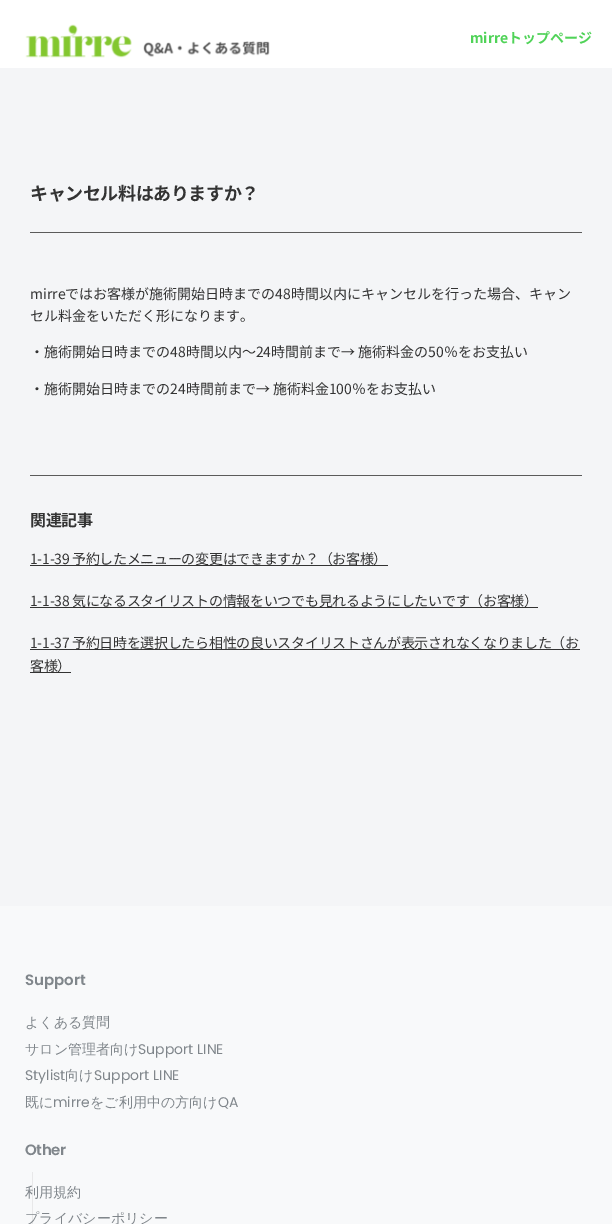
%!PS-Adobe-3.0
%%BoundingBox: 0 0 612 1224
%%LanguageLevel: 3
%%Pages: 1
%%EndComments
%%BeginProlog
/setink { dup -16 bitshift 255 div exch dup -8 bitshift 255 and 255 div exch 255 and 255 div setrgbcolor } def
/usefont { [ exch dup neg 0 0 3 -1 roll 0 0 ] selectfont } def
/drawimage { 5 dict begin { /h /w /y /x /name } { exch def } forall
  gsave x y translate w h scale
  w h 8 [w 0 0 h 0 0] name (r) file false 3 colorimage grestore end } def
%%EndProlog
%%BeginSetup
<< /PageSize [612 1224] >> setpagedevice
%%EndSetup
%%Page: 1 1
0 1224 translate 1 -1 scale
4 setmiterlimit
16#F4F5F7 setink
0 0 612 1224 rectfill
16#FFFFFF setink
0 0 612 68 rectfill
(img1.raw) 25 24 245 34 drawimage
/NotoSansJP-Bold 14 usefont
16#50D358 setink
470 43 moveto (mirreトップページ) show
/NotoSansJP-Bold 18 usefont
16#333333 setink
30 200 moveto -0.4 0 (キャンセル料はありますか？) ashow
16#5B5B5B setink
30 232 552 1 rectfill
/NotoSansJP-Regular 14 usefont
16#333333 setink
[
    [(mirreではお客様が施術開始日時までの48時間以内にキャンセルを行った場合、キャン) 30 299]
    [(セル料金をいただく形になります。) 30 321]
    [(・施術開始日時までの48時間以内～24時間前まで→ 施術料金の50％をお支払い) 30 357]
    [(・施術開始日時までの24時間前まで→ 施術料金100％をお支払い) 30 394]
] { aload pop moveto show } forall
16#5B5B5B setink
30 475 552 1 rectfill
/NotoSansJP-Bold 16 usefont
16#333333 setink
30 526 moveto -0.5 0 (関連記事) ashow
30 565 358 1 rectfill
/NotoSansJP-Regular 14 usefont
30 564 moveto -0.3 0 (1-1-39 予約したメニューの変更はできますか？（お客様）) ashow
30 607 508 1 rectfill
30 606 moveto -0.3 0 (1-1-38 気になるスタイリストの情報をいつでも見れるようにしたいです（お客様）) ashow
30 649 550 1 rectfill
30 648 moveto -0.3 0 (1-1-37 予約日時を選択したら相性の良いスタイリストさんが表示されなくなりました（お) ashow
30 672 41 1 rectfill
30 671 moveto -0.3 0 (客様）) ashow
16#F8F9FA setink
0 906 612 318 rectfill
/Poppins-SemiBold 15 usefont
16#80868B setink
25 985 moveto (Support) show
/WenQuanYiZenHei-Medium 14 usefont
25 1027 moveto (よくある質問) show
25 1054 moveto (サロン管理者向け) show
/Poppins-Regular 14 usefont
138 1054 moveto (Support LINE) show
25 1080 moveto (Stylist) show
/WenQuanYiZenHei-Medium 14 usefont
65 1080 moveto (向け) show
/Poppins-Regular 14 usefont
94 1080 moveto (Support LINE) show
/WenQuanYiZenHei-Medium 14 usefont
25 1107 moveto (既に) show
/Poppins-Regular 14 usefont
53 1107 moveto (mirre) show
/WenQuanYiZenHei-Medium 14 usefont
90 1107 moveto (をご利用中の方向け) show
/Poppins-Regular 14 usefont
218 1107 moveto (QA) show
/Poppins-SemiBold 15 usefont
25 1155 moveto -0.5 0 (Other) ashow
16#E8E8E9 setink
32 1172 1 52 rectfill
/WenQuanYiZenHei-Medium 14 usefont
16#80868B setink
25 1197 moveto (利用規約) show
25 1223 moveto (プライバシーポリシー) show
showpage
%%EOF
